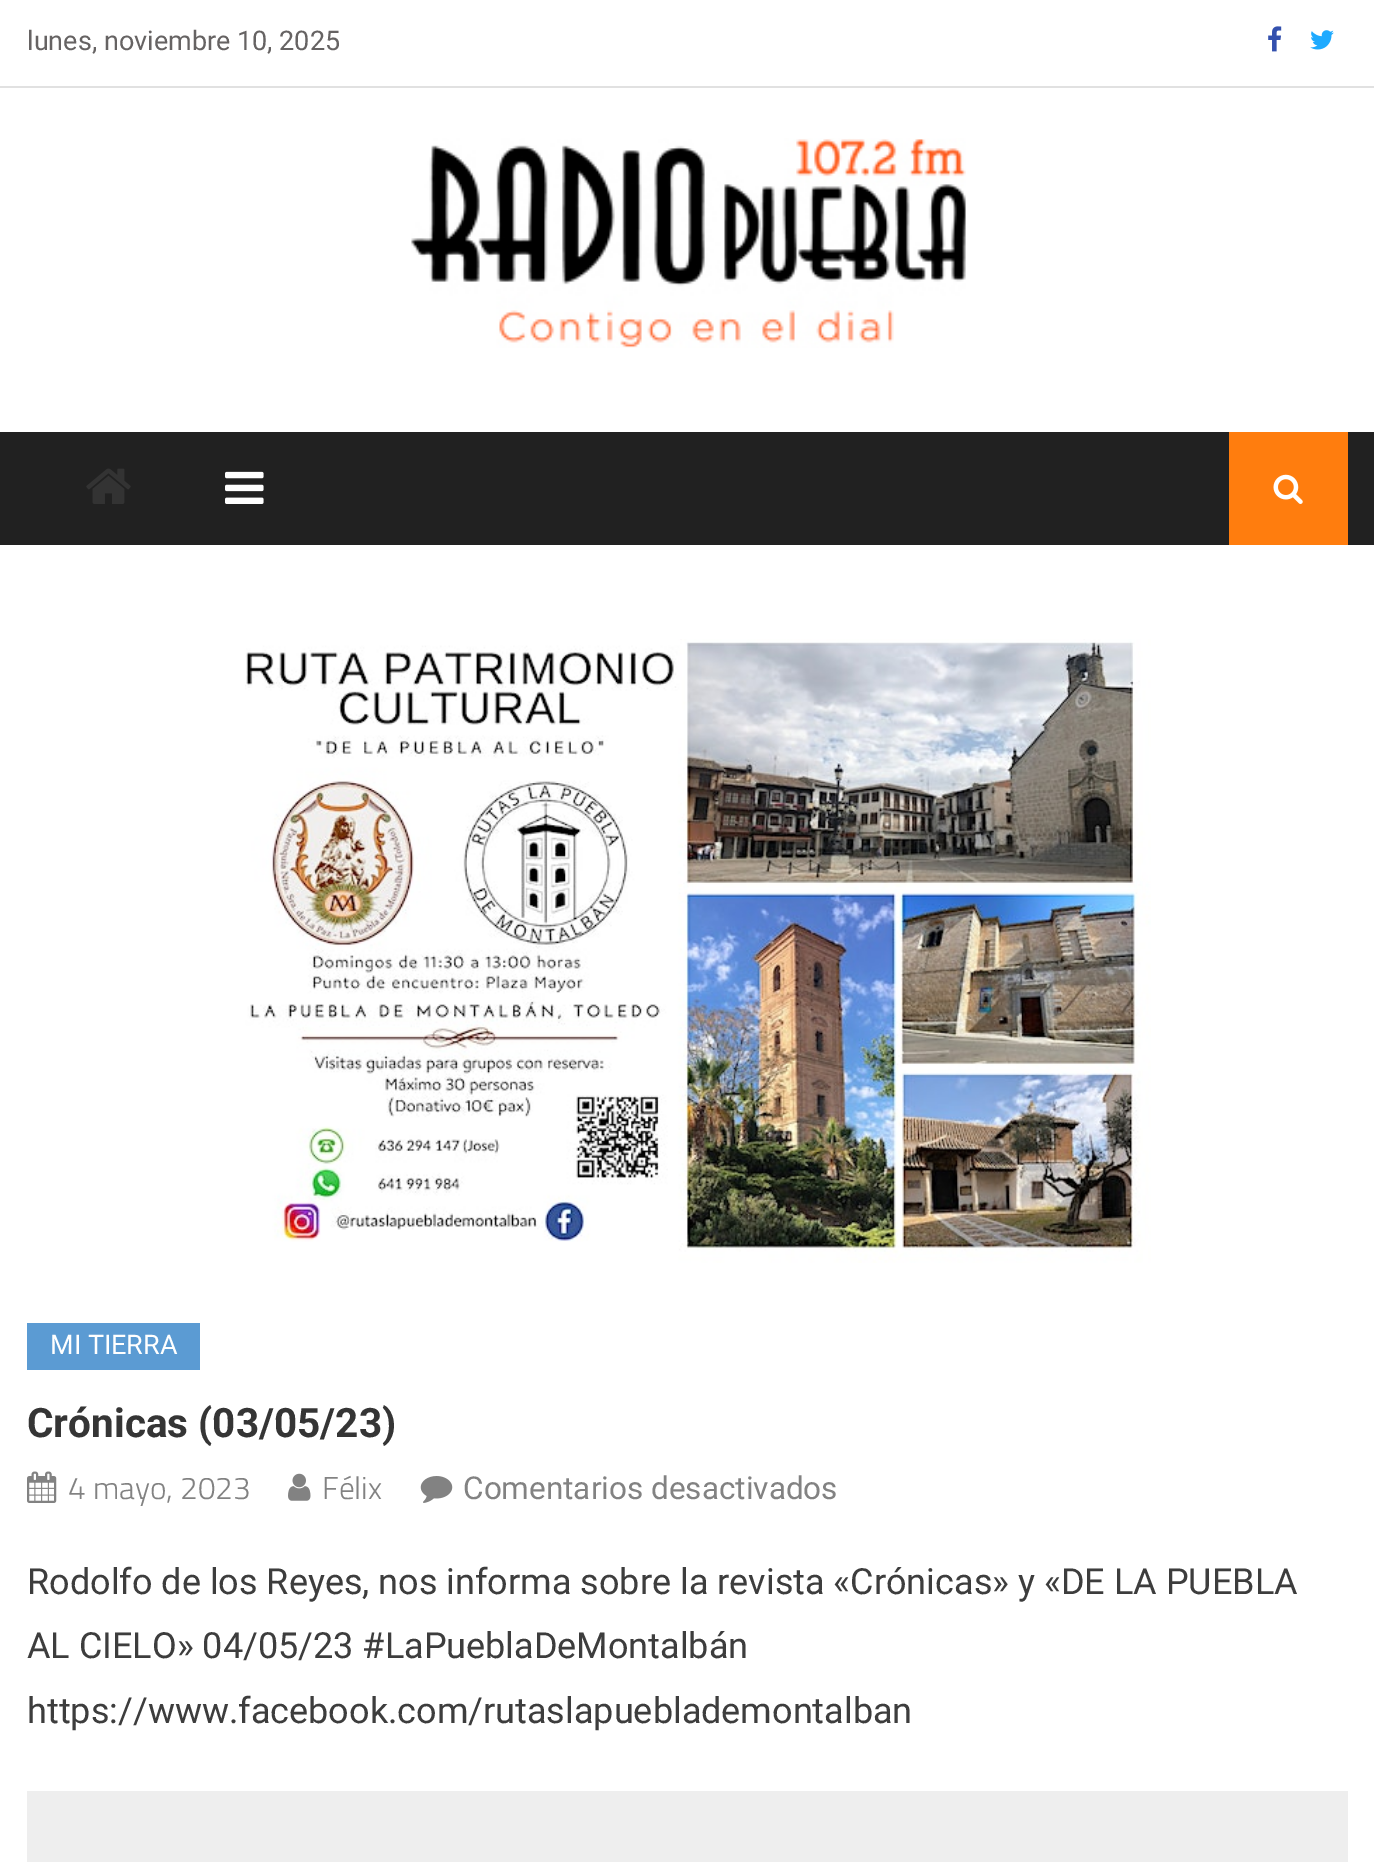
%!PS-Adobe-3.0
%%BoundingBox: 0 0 1374 1862
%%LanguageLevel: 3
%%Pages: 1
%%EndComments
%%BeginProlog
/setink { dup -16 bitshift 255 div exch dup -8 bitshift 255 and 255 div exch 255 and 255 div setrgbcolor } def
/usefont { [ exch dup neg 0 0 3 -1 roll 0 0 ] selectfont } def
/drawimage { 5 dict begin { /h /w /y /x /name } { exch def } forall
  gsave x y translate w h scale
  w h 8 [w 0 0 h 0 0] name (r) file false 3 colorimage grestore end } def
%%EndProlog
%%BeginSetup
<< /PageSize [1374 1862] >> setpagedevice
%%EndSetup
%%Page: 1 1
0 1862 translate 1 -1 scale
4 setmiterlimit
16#FFFFFF setink
0 0 1374 1862 rectfill
16#E1E1E1 setink
0 86 1374 2 rectfill
/Roboto-Regular 27 usefont
16#666363 setink
27 50 moveto (lunes, noviembre 10, 2025) show
(img1.raw) 1268 26 14 26 drawimage
(img2.raw) 1310 30 24 20 drawimage
(img3.raw) 411 138 555 210 drawimage
16#212121 setink
0 432 1374 113 rectfill
(img4.raw) 86 468 45 36 drawimage
(img5.raw) 225 471 39 33 drawimage
16#FF7D0E setink
1229 432 119 113 rectfill
(img6.raw) 1273 474 30 30 drawimage
(img7.raw) 245 639 906 624 drawimage
16#5B9BD3 setink
27 1323 173 47 rectfill
16#FFFFFF setink
50 1354 moveto (MI TIERRA) show
/Roboto-Bold 40.5 usefont
16#353535 setink
27 1437 moveto (Crónicas \(03/05/23\)) show
(img8.raw) 27 1471 30 32 drawimage
/TitilliumWeb-Light 31.5 usefont
16#828282 setink
68 1499 moveto (4 mayo, 2023) show
(img9.raw) 288 1473 23 28 drawimage
322 1499 moveto (Félix) show
(img10.raw) 420 1476 33 27 drawimage
/Roboto-Regular 31.5 usefont
463 1499 moveto (Comentarios desactivados) show
/Roboto-Regular 36 usefont
16#3D3D3D setink
[
    [(Rodolfo de los Reyes, nos informa sobre la revista «Crónicas» y «DE LA PUEBLA) 27 1594]
    [(AL CIELO» 04/05/23 #LaPueblaDeMontalbán) 27 1658]
    [(https://www.facebook.com/rutaslapueblademontalban) 27 1723]
] { aload pop moveto show } forall
16#EEEEEE setink
27 1791 1321 71 rectfill
showpage
%%EOF
